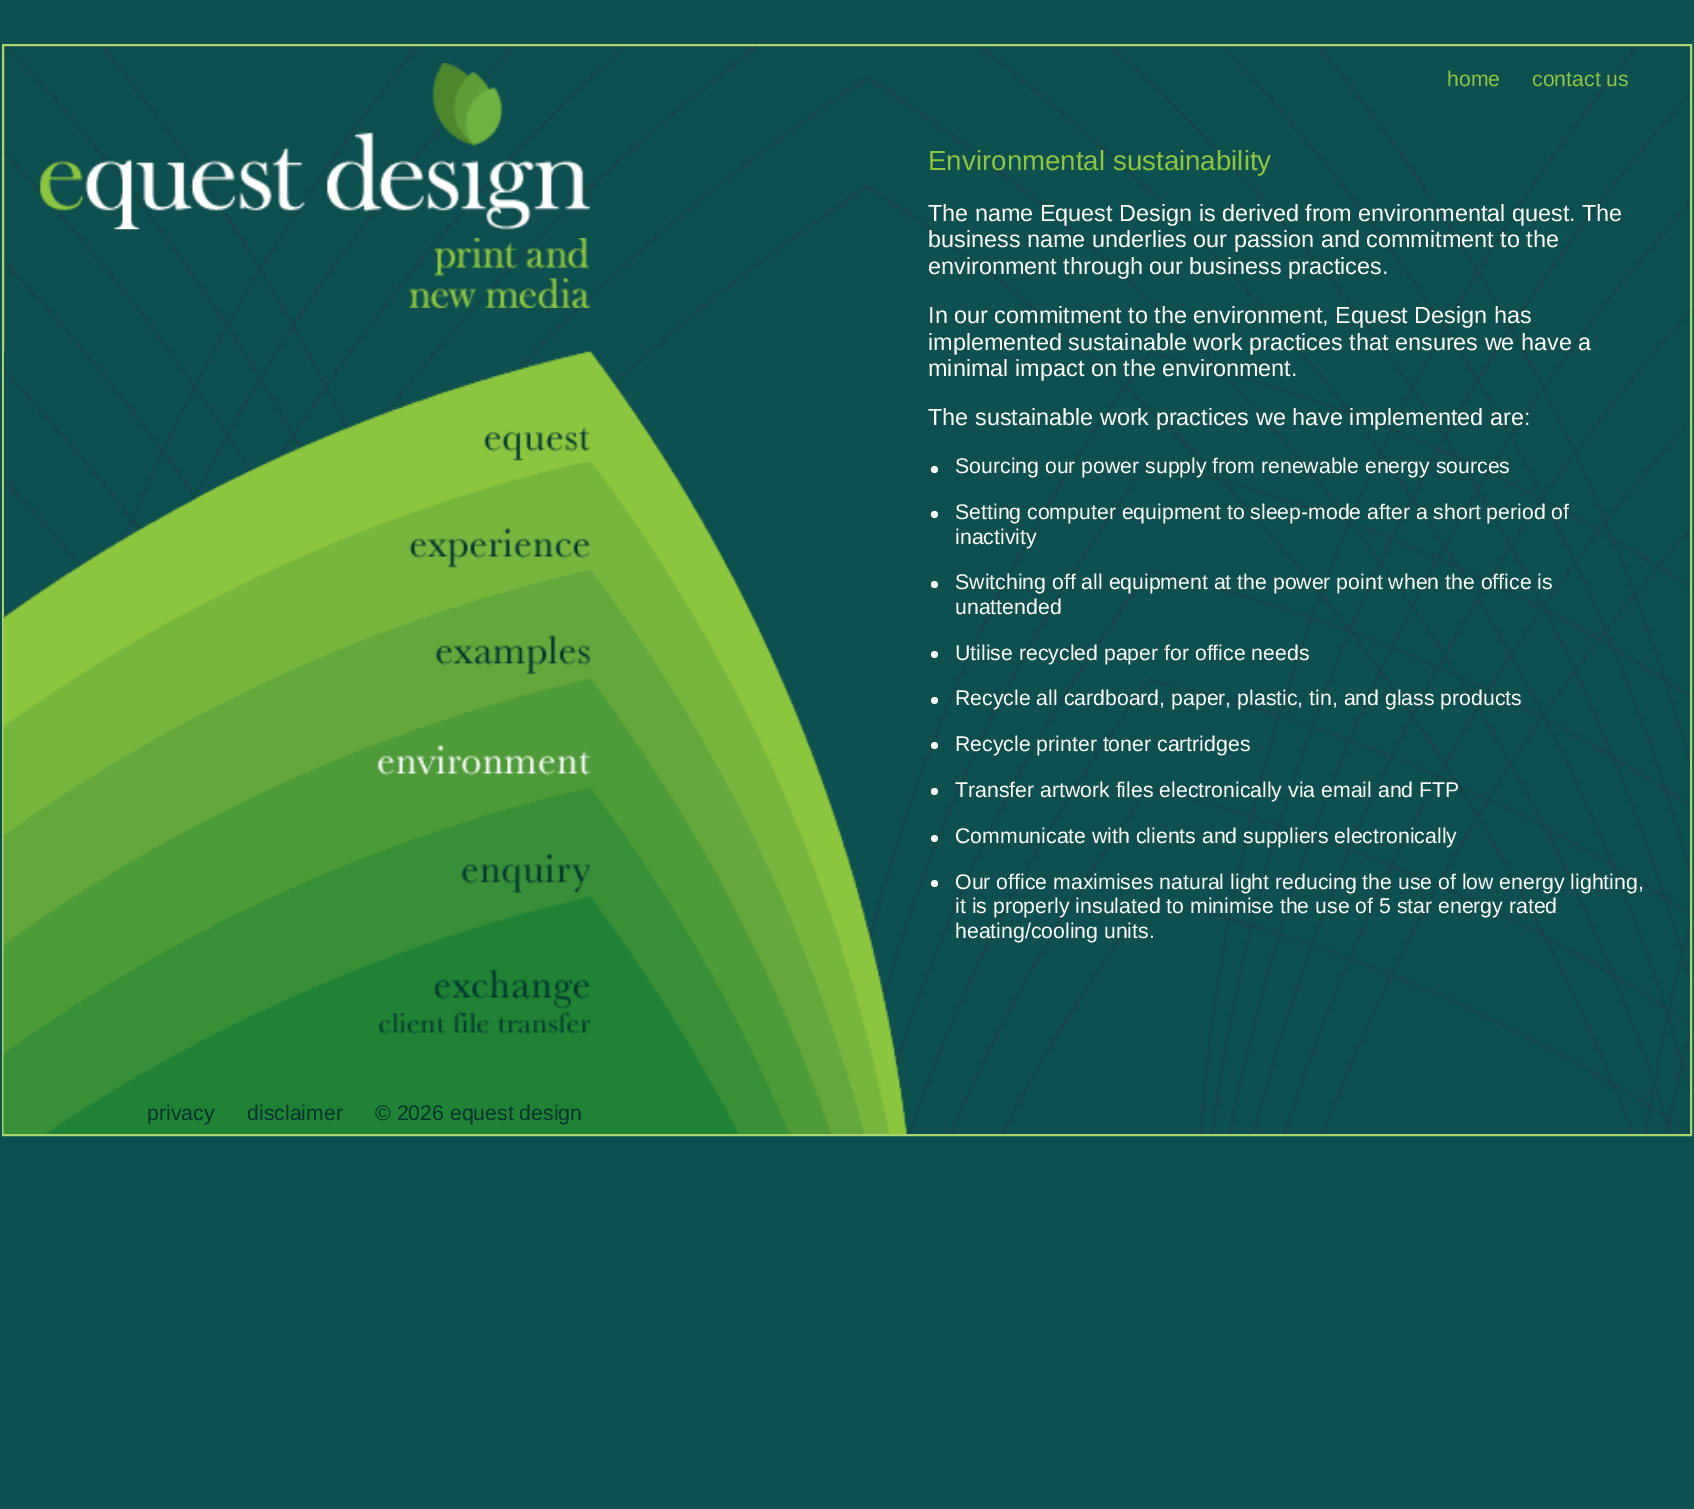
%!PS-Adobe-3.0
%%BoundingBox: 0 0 1694 1509
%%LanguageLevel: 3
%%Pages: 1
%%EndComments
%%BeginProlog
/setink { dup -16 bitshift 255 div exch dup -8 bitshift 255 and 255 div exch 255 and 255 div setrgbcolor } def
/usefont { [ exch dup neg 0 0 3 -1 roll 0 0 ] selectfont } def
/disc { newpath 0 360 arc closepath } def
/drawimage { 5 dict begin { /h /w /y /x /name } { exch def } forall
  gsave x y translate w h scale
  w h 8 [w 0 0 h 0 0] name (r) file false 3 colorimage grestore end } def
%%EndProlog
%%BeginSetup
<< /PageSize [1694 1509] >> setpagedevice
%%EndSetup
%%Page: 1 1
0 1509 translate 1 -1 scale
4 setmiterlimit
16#0E4F50 setink
0 0 1694 1509 rectfill
(img1.raw) 4 46 1686 1088 drawimage
16#A9D46F setink
2 setlinewidth
3 45 1688 1090 rectstroke
(img2.raw) 3 351 904 783 drawimage
(img3.raw) 39 63 551 167 drawimage
/LiberationSans-Regular 21.25 usefont
16#8CC63F setink
1447 86 moveto (home) show
1532 86 moveto (contact us) show
(img4.raw) 409 238 181 70 drawimage
/LiberationSans-Regular 27.7 usefont
928 170 moveto (Environmental sustainability) show
/LiberationSans-Regular 23.4 usefont
16#FFFFFF setink
[
    [(The name Equest Design is derived from environmental quest. The) 928 221]
    [(business name underlies our passion and commitment to the) 928 247]
    [(environment through our business practices.) 928 274]
    [(In our commitment to the environment, Equest Design has) 928 323]
    [(implemented sustainable work practices that ensures we have a) 928 350]
    [(minimal impact on the environment.) 928 376]
    [(The sustainable work practices we have implemented are:) 928 425]
] { aload pop moveto show } forall
934.5 469.5 3.5 disc fill
/LiberationSans-Regular 21.25 usefont
955 473 moveto (Sourcing our power supply from renewable energy sources) show
934.5 514.5 3.5 disc fill
955 519 moveto (Setting computer equipment to sleep-mode after a short period of) show
955 544 moveto (inactivity) show
934.5 584.5 3.5 disc fill
955 589 moveto (Switching off all equipment at the power point when the office is) show
955 614 moveto (unattended) show
934.5 654.5 3.5 disc fill
955 660 moveto (Utilise recycled paper for office needs) show
934.5 700.5 3.5 disc fill
955 705 moveto (Recycle all cardboard, paper, plastic, tin, and glass products) show
934.5 745.5 3.5 disc fill
955 751 moveto (Recycle printer toner cartridges) show
934.5 791.5 3.5 disc fill
955 797 moveto (Transfer artwork files electronically via email and FTP) show
934.5 838.5 3.5 disc fill
955 843 moveto (Communicate with clients and suppliers electronically) show
934.5 883.5 3.5 disc fill
[
    [(Our office maximises natural light reducing the use of low energy lighting,) 955 889]
    [(it is properly insulated to minimise the use of 5 star energy rated) 955 913]
    [(heating/cooling units.) 955 938]
] { aload pop moveto show } forall
(img5.raw) 484 427 106 35 drawimage
(img6.raw) 409 528 181 40 drawimage
(img7.raw) 435 635 155 40 drawimage
(img8.raw) 377 745 213 31 drawimage
(img9.raw) 461 854 129 39 drawimage
(img10.raw) 378 969 212 66 drawimage
16#003232 setink
[
    [(privacy) 147 1120]
    [(disclaimer) 247 1120]
    [(© 2026 equest design) 375 1120]
] { aload pop moveto show } forall
showpage
%%EOF
